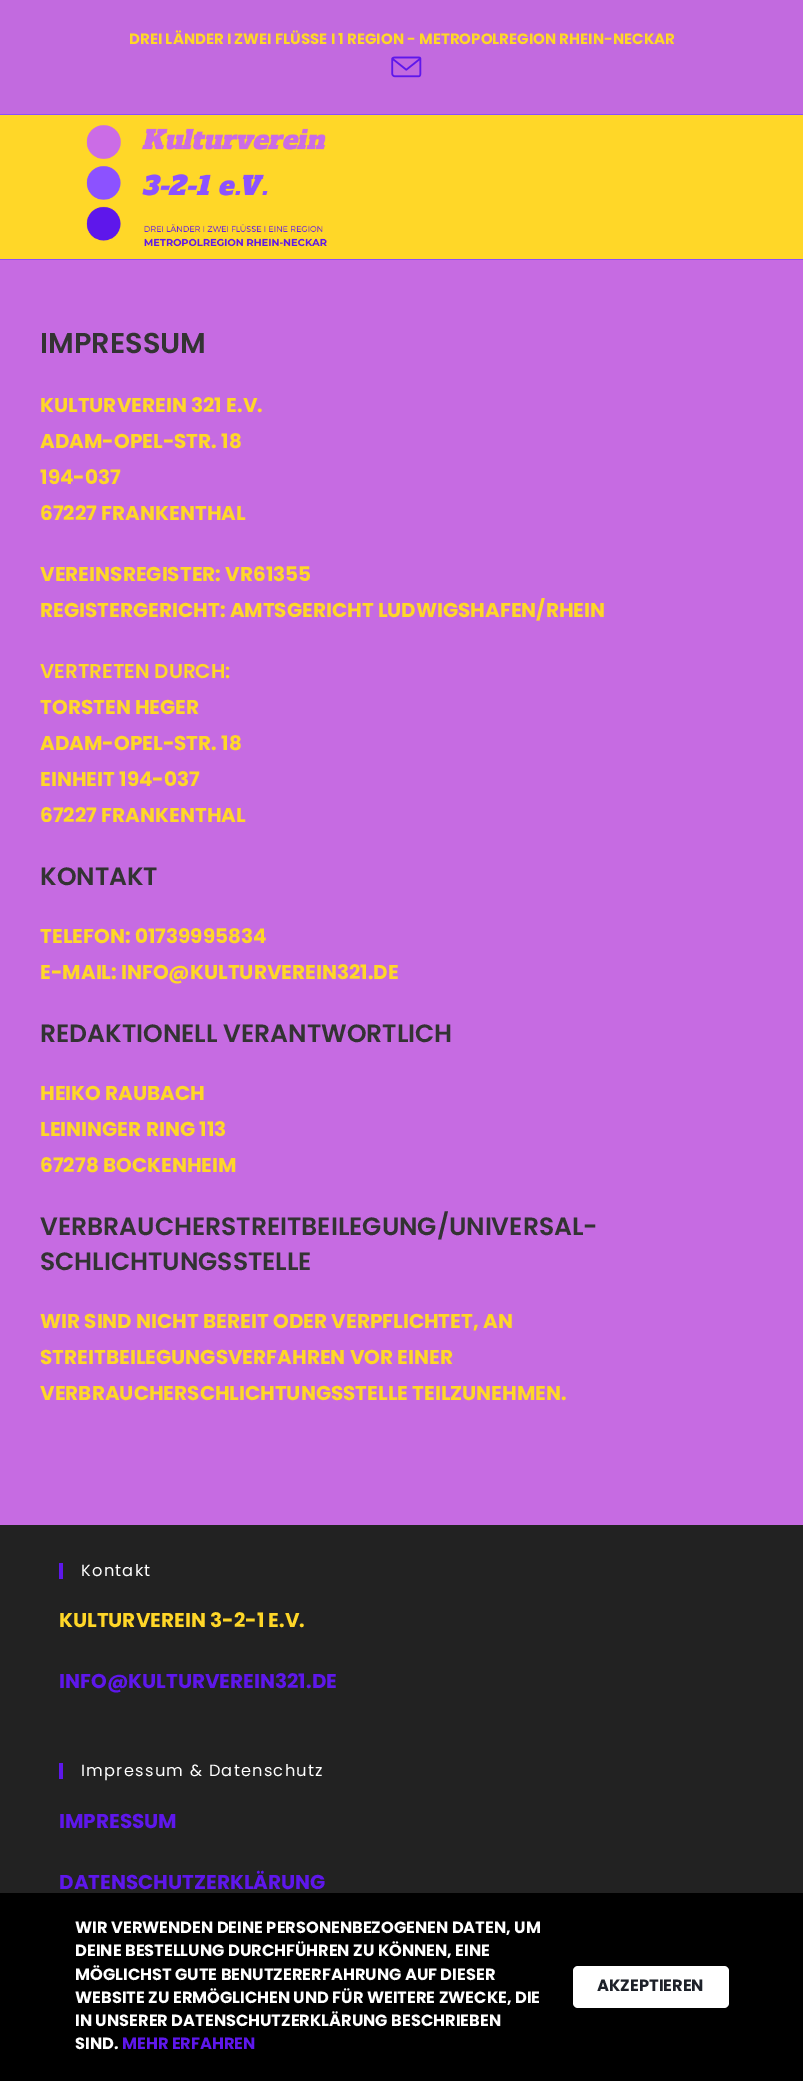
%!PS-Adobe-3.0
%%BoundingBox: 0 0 803 2081
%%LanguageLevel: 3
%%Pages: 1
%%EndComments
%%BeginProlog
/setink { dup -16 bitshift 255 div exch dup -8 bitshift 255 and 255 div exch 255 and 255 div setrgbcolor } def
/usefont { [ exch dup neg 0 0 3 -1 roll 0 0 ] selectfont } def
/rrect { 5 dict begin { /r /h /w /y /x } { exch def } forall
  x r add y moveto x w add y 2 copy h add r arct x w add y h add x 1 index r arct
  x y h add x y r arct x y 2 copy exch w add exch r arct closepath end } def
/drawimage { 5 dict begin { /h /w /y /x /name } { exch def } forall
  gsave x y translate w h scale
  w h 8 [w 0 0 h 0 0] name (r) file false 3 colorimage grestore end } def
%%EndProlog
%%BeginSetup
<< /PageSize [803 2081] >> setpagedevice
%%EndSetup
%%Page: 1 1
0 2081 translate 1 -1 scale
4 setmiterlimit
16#C66BE2 setink
0 0 803 2081 rectfill
16#C26ADF setink
0 0 803 114 rectfill
16#8B50FB setink
0 114 803 1 rectfill
/Poppins-Bold 15 usefont
16#FFD728 setink
129 44 moveto (DREI LÄNDER I ZWEI FLÜSSE I 1 REGION - METROPOLREGION RHEIN-NECKAR) show
(img1.raw) 391 56 31 22 drawimage
0 115 803 144 rectfill
16#8B50FB setink
0 259 803 1 rectfill
(img2.raw) 86 125 241 122 drawimage
/Poppins-SemiBold 28.75 usefont
16#333333 setink
40 353 moveto (IMPRESSUM) show
/Poppins-Bold 20 usefont
16#FFD728 setink
[
    [(KULTURVEREIN 321 E.V.) 40 412]
    [(ADAM-OPEL-STR. 18) 40 448]
    [(194-037) 40 484]
    [(67227 FRANKENTHAL) 40 520]
    [(VEREINSREGISTER: VR61355) 40 581]
    [(REGISTERGERICHT: AMTSGERICHT LUDWIGSHAFEN/RHEIN) 40 617]
] { aload pop moveto show } forall
/Poppins-SemiBold 20 usefont
40 678 moveto (VERTRETEN DURCH:) show
/Poppins-Bold 20 usefont
[
    [(TORSTEN HEGER) 40 714]
    [(ADAM-OPEL-STR. 18) 40 750]
    [(EINHEIT 194-037) 40 786]
    [(67227 FRANKENTHAL) 40 822]
] { aload pop moveto show } forall
/Poppins-SemiBold 25 usefont
16#333333 setink
40 885 moveto (KONTAKT) show
/Poppins-Bold 20 usefont
16#FFD728 setink
40 943 moveto (TELEFON: 01739995834) show
40 979 moveto (E-MAIL: INFO@KULTURVEREIN321.DE) show
/Poppins-SemiBold 25 usefont
16#333333 setink
40 1042 moveto (REDAKTIONELL VERANTWORTLICH) show
/Poppins-Bold 20 usefont
16#FFD728 setink
[
    [(HEIKO RAUBACH) 40 1100]
    [(LEININGER RING 113) 40 1136]
    [(67278 BOCKENHEIM) 40 1172]
] { aload pop moveto show } forall
/Poppins-SemiBold 25 usefont
16#333333 setink
40 1235 moveto (VERBRAUCHERSTREITBEILEGUNG/UNIVERSAL-) show
40 1270 moveto (SCHLICHTUNGSSTELLE) show
/Poppins-Bold 20 usefont
16#FFD728 setink
[
    [(WIR SIND NICHT BEREIT ODER VERPFLICHTET, AN) 40 1328]
    [(STREITBEILEGUNGSVERFAHREN VOR EINER) 40 1364]
    [(VERBRAUCHERSCHLICHTUNGSSTELLE TEILZUNEHMEN.) 40 1400]
] { aload pop moveto show } forall
16#222222 setink
0 1525 803 368 rectfill
16#5E17EB setink
59 1563 4 16 rectfill
/Poppins-Regular 16.25 usefont
16#FFFFFF setink
81 1576 moveto 1.25 0 (Kontakt) ashow
/Poppins-Bold 20 usefont
16#FFD728 setink
59 1627 moveto (KULTURVEREIN 3-2-1 E.V.) show
16#5E17EB setink
59 1688 moveto (INFO@KULTURVEREIN321.DE) show
59 1763 4 16 rectfill
/Poppins-Regular 16.25 usefont
16#FFFFFF setink
81 1776 moveto 1.25 0 (Impressum & Datenschutz) ashow
/Poppins-Bold 20 usefont
16#5E17EB setink
59 1828 moveto (IMPRESSUM) show
59 1889 moveto (DATENSCHUTZERKLÄRUNG) show
16#000000 setink
0 1893 803 188 rectfill
/Poppins-Bold 16.25 usefont
16#FFFFFF setink
[
    [(WIR VERWENDEN DEINE PERSONENBEZOGENEN DATEN, UM) 75 1933]
    [(DEINE BESTELLUNG DURCHFÜHREN ZU KÖNNEN, EINE) 75 1956]
    [(MÖGLICHST GUTE BENUTZERERFAHRUNG AUF DIESER) 75 1980]
    [(WEBSITE ZU ERMÖGLICHEN UND FÜR WEITERE ZWECKE, DIE) 75 2003]
    [(IN UNSERER DATENSCHUTZERKLÄRUNG BESCHRIEBEN) 75 2026]
    [(SIND.) 75 2049]
] { aload pop moveto show } forall
16#5E17EB setink
122 2049 moveto (MEHR ERFAHREN) show
16#FFFFFF setink
573 1966 156 42 5 rrect fill
16#1D2129 setink
597 1991 moveto (AKZEPTIEREN) show
showpage
%%EOF
